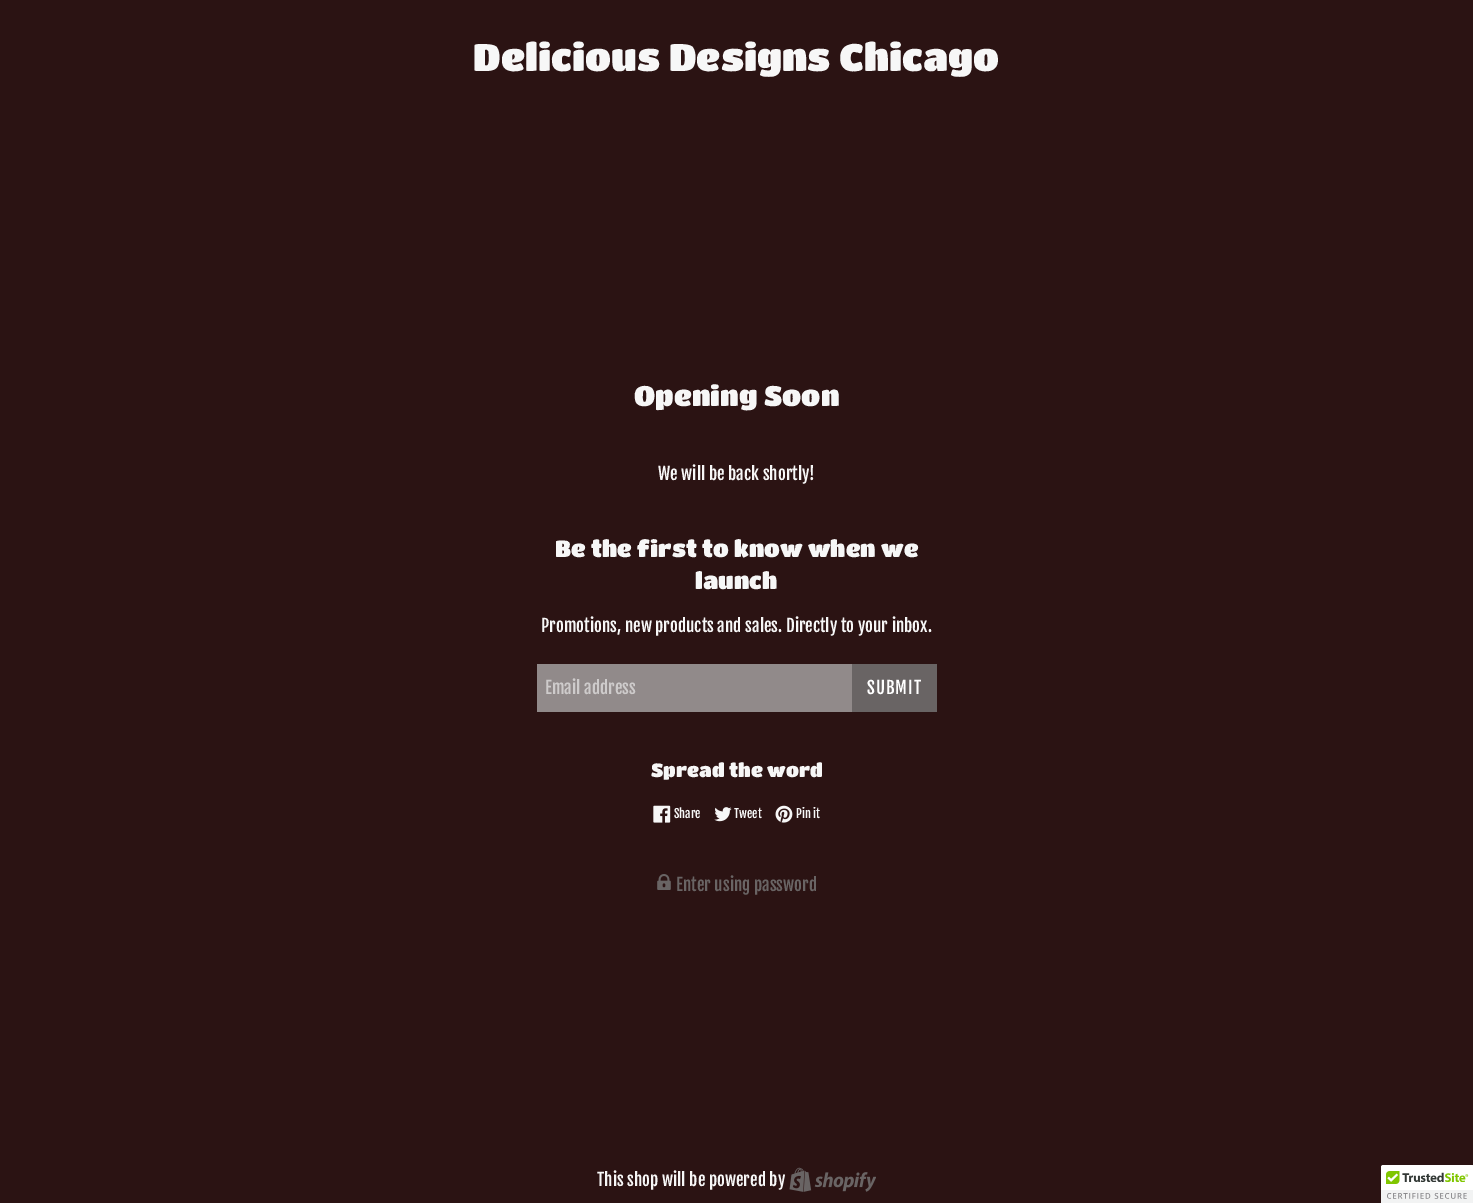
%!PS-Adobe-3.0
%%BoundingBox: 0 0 1473 1203
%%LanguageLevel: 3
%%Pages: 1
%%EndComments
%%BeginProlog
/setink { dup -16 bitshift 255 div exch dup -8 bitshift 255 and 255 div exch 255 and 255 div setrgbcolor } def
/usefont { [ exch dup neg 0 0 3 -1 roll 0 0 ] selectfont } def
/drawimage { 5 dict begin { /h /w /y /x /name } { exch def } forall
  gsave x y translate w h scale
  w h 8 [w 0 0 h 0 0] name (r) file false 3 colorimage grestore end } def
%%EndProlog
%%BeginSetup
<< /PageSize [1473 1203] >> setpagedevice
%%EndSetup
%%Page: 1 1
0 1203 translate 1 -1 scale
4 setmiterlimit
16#2B1313 setink
0 0 1473 1203 rectfill
/TitanOne-Regular 37.9 usefont
16#F7F7F7 setink
473 71 moveto (Delicious Designs Chicago) show
/TitanOne-Regular 28 usefont
634 406 moveto (Opening Soon) show
/FjallaOne-Regular 17 usefont
658 480 moveto (We will be back shortly!) show
/TitanOne-Regular 23 usefont
555 557 moveto (Be the first to know when we) show
695 589 moveto (launch) show
/FjallaOne-Regular 17 usefont
541 632 moveto (Promotions, new products and sales. Directly to your inbox.) show
16#918A8A setink
537 664 315 48 rectfill
16#CECBCB setink
545 694 moveto (Email address) show
16#696464 setink
852 664 85 48 rectfill
16#FFFFFF setink
867 694 moveto 1 0 (SUBMIT) ashow
/TitanOne-Regular 19 usefont
16#F7F7F7 setink
651 777 moveto (Spread the word) show
(img1.raw) 653 805 18 18 drawimage
/FjallaOne-Regular 12 usefont
674 818 moveto (Share) show
(img2.raw) 714 807 18 15 drawimage
734 818 moveto (Tweet) show
(img3.raw) 775 805 18 18 drawimage
796 818 moveto (Pin it) show
(img4.raw) 657 874 14 16 drawimage
/FjallaOne-Regular 17 usefont
16#696464 setink
676 891 moveto (Enter using password) show
16#F7F7F7 setink
597 1186 moveto (This shop will be powered by) show
(img5.raw) 789 1167 87 25 drawimage
16#FFFFFF setink
1383 1165 moveto 1473 1165 lineto 1473 1203 lineto 1381 1203 lineto 1381 1167 lineto 1381 1166 1382 1165 1383 1165 curveto closepath fill
(img6.raw) 1381 1165 92 38 drawimage
showpage
%%EOF
